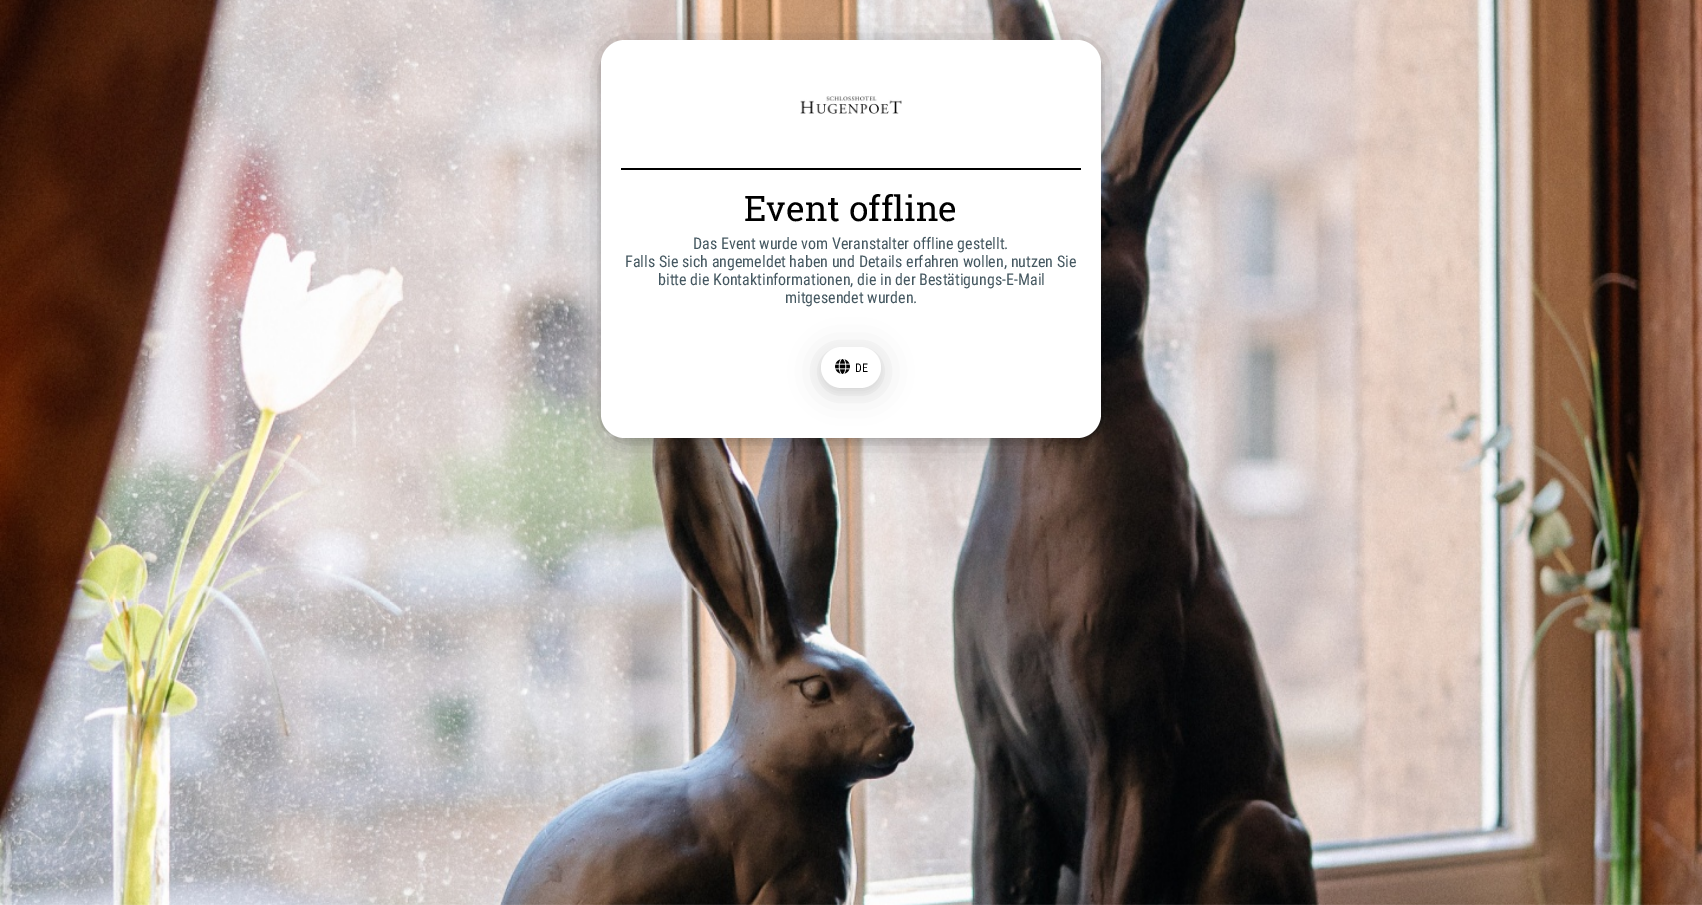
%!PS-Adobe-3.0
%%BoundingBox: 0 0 1702 905
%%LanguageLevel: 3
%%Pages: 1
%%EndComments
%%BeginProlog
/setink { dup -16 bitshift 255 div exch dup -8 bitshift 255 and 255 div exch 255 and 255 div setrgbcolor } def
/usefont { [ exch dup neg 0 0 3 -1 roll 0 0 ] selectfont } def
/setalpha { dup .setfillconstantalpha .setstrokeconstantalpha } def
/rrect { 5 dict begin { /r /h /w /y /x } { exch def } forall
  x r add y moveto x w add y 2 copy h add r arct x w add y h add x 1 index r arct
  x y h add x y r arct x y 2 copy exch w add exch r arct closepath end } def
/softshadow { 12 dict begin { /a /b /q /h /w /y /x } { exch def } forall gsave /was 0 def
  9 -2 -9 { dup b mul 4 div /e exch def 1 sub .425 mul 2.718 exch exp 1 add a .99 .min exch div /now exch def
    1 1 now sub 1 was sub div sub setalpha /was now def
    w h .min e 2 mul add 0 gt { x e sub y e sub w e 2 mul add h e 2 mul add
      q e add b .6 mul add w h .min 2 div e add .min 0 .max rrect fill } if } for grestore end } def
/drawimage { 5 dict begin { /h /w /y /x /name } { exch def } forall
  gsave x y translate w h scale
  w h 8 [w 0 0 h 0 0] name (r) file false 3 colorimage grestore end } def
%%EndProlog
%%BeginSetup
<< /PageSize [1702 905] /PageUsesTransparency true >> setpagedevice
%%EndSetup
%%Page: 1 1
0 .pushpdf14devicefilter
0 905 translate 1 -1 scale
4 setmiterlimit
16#FFFFFF setink
0 0 1702 905 rectfill
(img1.raw) 0 904 1702 1 drawimage
(img2.raw) 0 0 1702 905 drawimage
16#000000 setink
603 46 496 394 22 5 0.2 softshadow
601 44 500 398 24 15 0.25 softshadow
16#FFFFFF setink
601 40 500 398 24 rrect fill
(img3.raw) 800 96 102 18 drawimage
16#000000 setink
621 168 460 2 rectfill
/RobotoSlab-Regular 35 usefont
744 221 moveto (Event offline) show
/RobotoCondensed-Regular 16 usefont
16#445760 setink
[
    [(Das Event wurde vom Veranstalter offline gestellt.) 693 249]
    [(Falls Sie sich angemeldet haben und Details erfahren wollen, nutzen Sie) 625 267]
    [(bitte die Kontaktinformationen, die in der Bestätigungs-E-Mail) 658 285]
    [(mitgesendet wurden.) 785 303]
] { aload pop moveto show } forall
16#000000 setink
823 353 56 37 18.5 5 0.1 softshadow
821 351 60 41 20.5 15 0.15 softshadow
16#FFFFFF setink
821 347 60 41 20.5 rrect fill
(img4.raw) 835 359 15 15 drawimage
/RobotoCondensed-Regular 12 usefont
16#000000 setink
855 372 moveto (DE) show
.poppdf14devicefilter showpage
%%EOF
